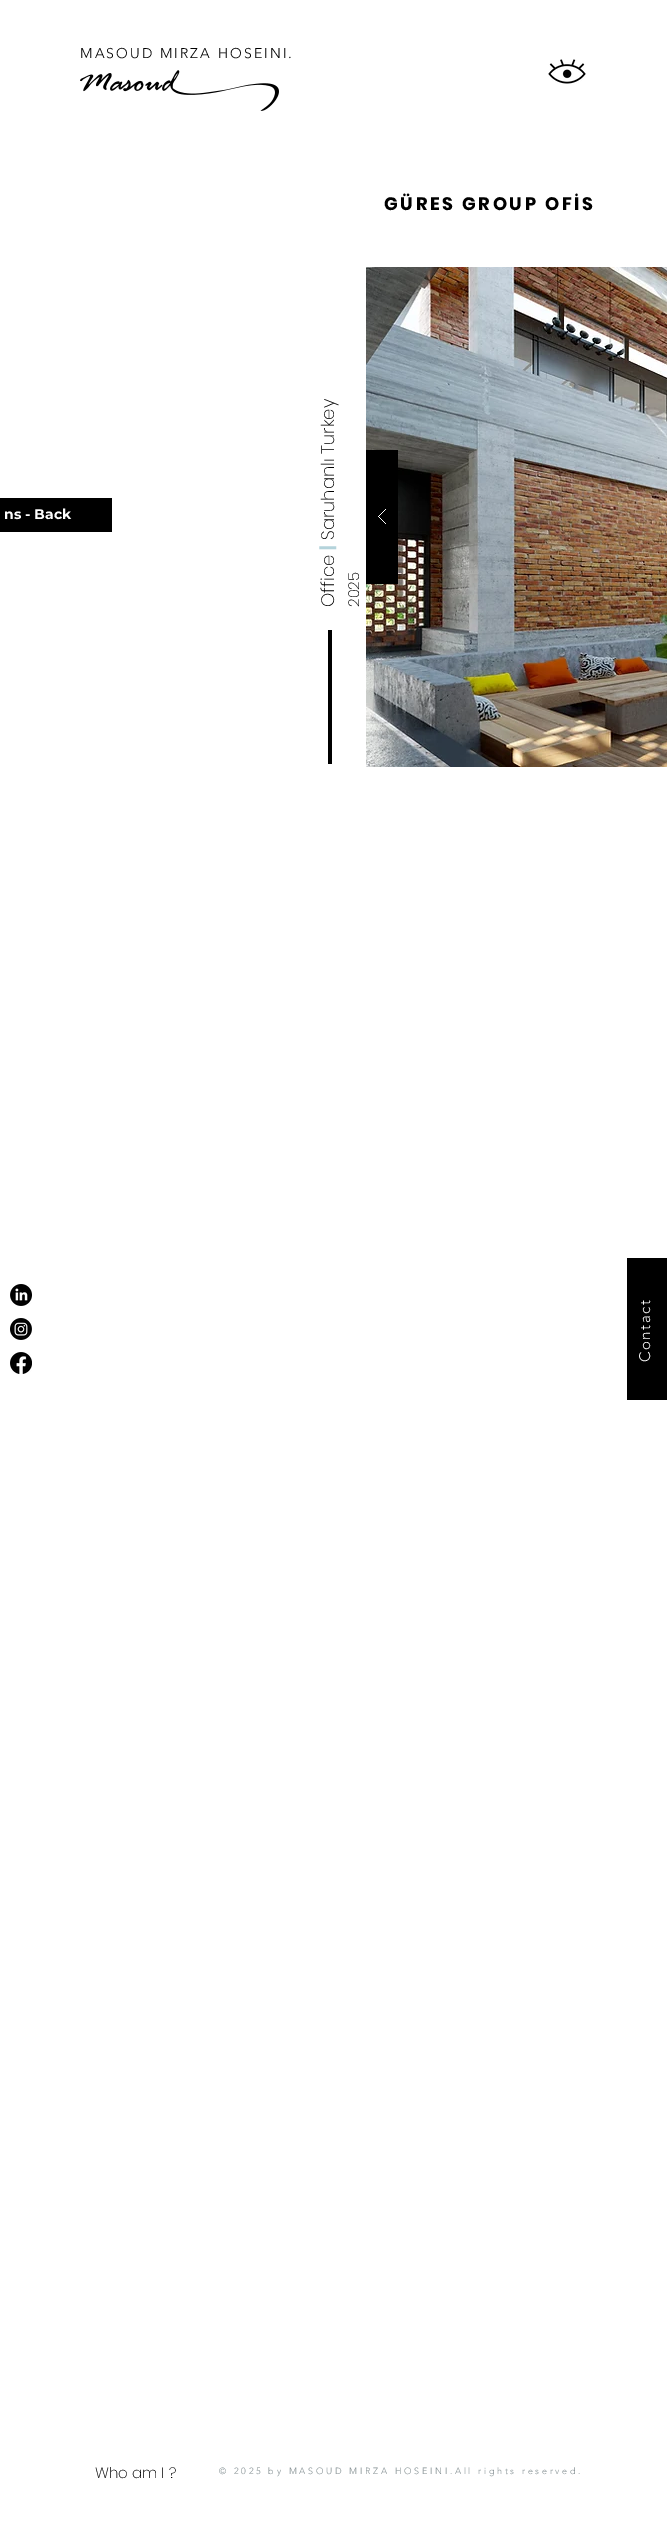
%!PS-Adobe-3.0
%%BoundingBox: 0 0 667 2537
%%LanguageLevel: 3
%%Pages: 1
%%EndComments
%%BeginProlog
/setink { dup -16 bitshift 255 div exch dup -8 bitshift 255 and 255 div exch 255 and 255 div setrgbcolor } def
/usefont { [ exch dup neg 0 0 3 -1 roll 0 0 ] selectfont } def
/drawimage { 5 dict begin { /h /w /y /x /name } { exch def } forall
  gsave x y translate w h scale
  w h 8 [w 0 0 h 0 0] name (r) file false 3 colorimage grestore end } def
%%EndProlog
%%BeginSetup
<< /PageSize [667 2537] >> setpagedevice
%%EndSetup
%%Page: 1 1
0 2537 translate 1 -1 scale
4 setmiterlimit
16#FFFFFF setink
0 0 667 2537 rectfill
/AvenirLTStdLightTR-Light 14 usefont
16#000000 setink
80 58 moveto 2.1 0 (MASOUD MIRZA HOSEINI.) ashow
(img1.raw) 80 70 199 41 drawimage
(img2.raw) 548 59 38 25 drawimage
/Poppins-Bold 18 usefont
384 210 moveto 2.7 0 (GÜRES GROUP OFİS) ashow
0 498 112 34 rectfill
/Montserrat-Bold 14 usefont
16#FFFFFF setink
4 519 moveto (ns - Back) show
/Poppins-ExtraLight 18 usefont
16#000000 setink
gsave 334 540 translate -90 rotate 0 0 moveto (Saruhanlı Turkey) show grestore
/Poppins-Bold 18 usefont
16#B4D3DB setink
gsave 334 550 translate -90 rotate 0 0 moveto (|) show grestore
/Poppins-ExtraLight 18 usefont
16#000000 setink
gsave 334 607 translate -90 rotate 0 0 moveto (Office) show grestore
/Poppins-ExtraLight 15 usefont
gsave 359 607 translate -90 rotate 0 0 moveto (2025) show grestore
(img3.raw) 366 267 301 500 drawimage
366 450 32 134 rectfill
(img4.raw) 378 509 8 15 drawimage
328 630 4 134 rectfill
(img5.raw) 10 1284 22 22 drawimage
(img6.raw) 10 1318 22 22 drawimage
(img7.raw) 10 1352 22 22 drawimage
627 1258 40 142 rectfill
/AvenirLTStdLightTR-Light 15 usefont
16#FFFFFF setink
gsave 650 1362 translate -90 rotate 0 0 moveto 1.5 0 (Contact) ashow grestore
/Poppins-ExtraLight 15 usefont
16#000000 setink
95 2478 moveto (Who am I ?) show
/AvenirLTStdLightTR-Light 9 usefont
16#869194 setink
219 2474 moveto 2.7 0 (© 2025 by MASOUD MIRZA HOSEINI.All rights reserved.) ashow
showpage
%%EOF
